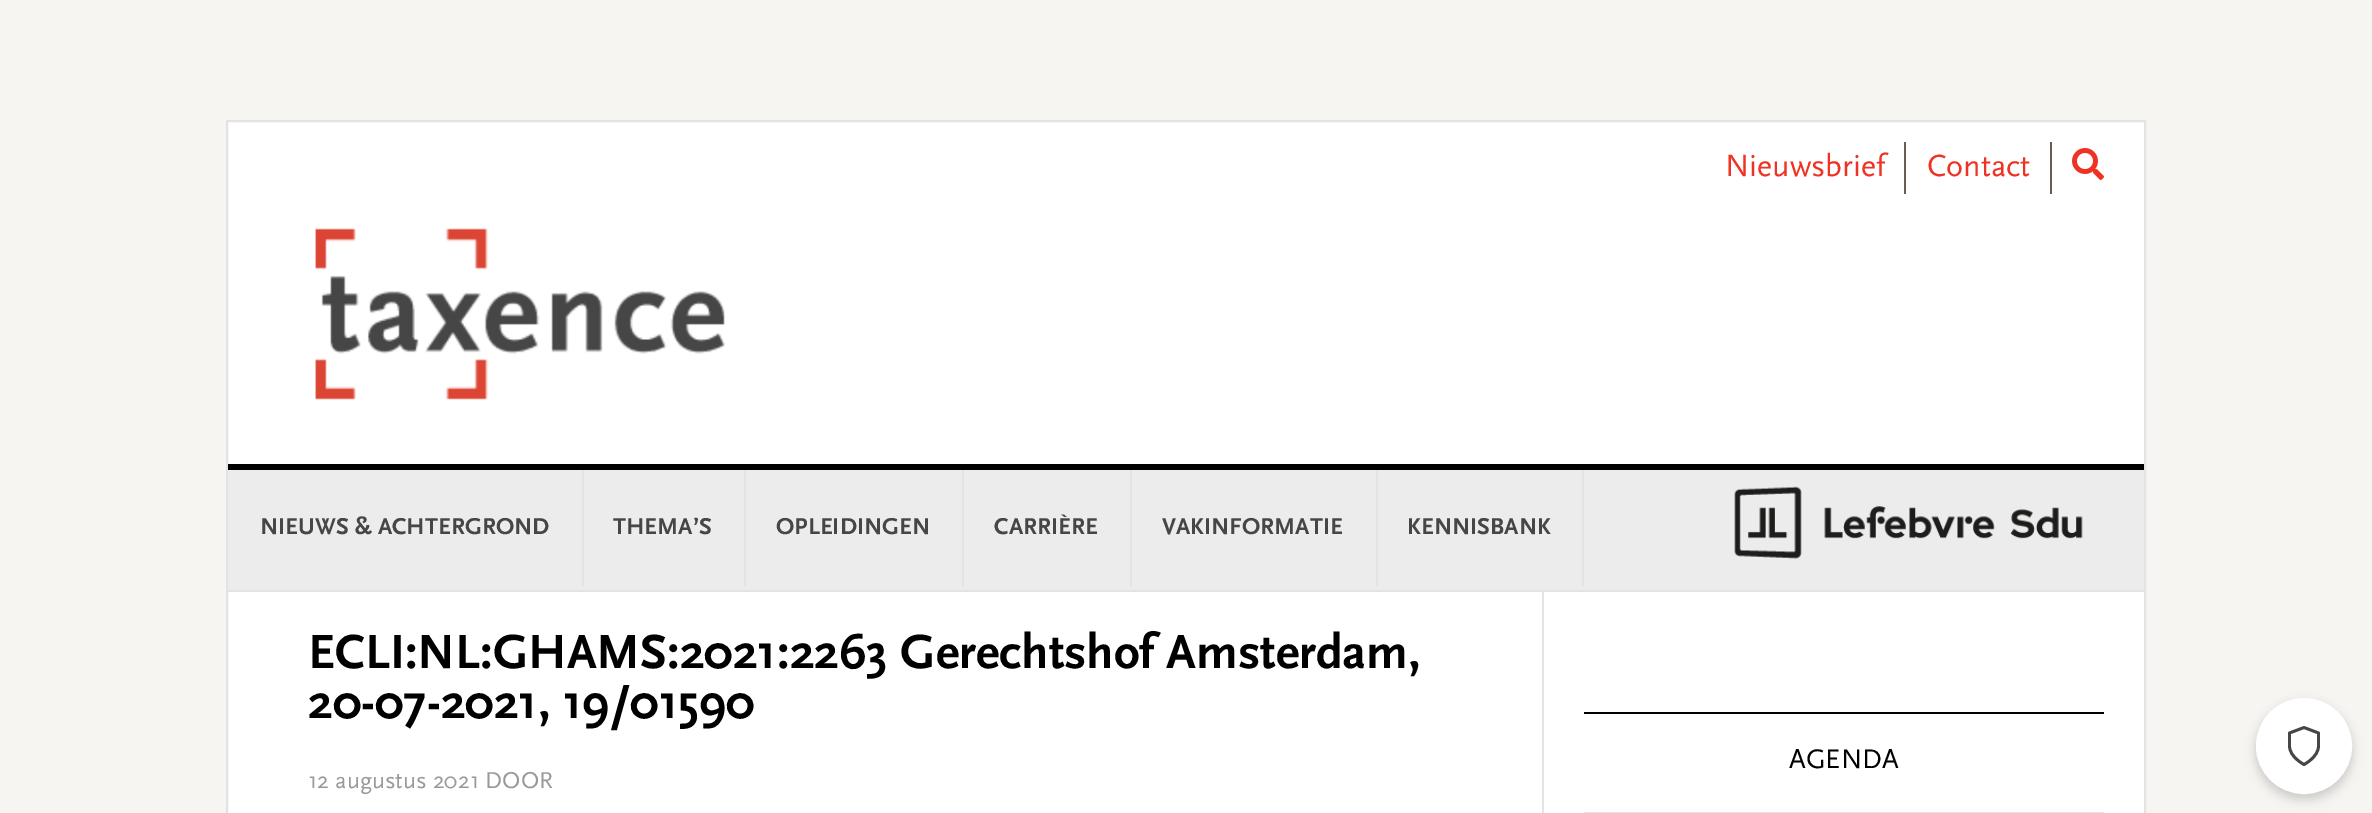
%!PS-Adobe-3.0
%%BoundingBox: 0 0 2372 813
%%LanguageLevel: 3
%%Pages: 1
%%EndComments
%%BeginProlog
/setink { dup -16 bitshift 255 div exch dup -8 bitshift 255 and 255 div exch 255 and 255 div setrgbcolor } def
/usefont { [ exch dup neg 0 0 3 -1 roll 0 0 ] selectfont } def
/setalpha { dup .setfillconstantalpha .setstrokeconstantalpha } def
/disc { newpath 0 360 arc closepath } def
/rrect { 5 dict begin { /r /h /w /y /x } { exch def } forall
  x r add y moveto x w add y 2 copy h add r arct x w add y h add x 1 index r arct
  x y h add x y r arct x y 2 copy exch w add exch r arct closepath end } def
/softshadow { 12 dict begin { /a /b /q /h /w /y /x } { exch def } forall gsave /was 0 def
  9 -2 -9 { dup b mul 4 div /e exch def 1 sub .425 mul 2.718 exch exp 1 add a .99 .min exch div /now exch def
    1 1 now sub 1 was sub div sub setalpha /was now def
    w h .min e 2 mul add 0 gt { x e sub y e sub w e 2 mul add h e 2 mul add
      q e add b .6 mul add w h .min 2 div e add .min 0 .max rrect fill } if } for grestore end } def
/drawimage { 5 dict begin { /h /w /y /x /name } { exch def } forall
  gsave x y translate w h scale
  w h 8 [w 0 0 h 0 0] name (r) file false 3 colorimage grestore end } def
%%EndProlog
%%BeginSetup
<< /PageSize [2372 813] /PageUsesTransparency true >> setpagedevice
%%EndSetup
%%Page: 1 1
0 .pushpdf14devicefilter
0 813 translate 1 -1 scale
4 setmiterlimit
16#F6F5F2 setink
0 0 2372 813 rectfill
16#FFFFFF setink
227 121 moveto 2145 121 lineto 2145 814 lineto 227 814 lineto closepath gsave fill grestore
16#E3E3E3 setink
2 setlinewidth
stroke
16#675F52 setink
1904 142 2 52 rectfill
/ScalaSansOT-Regular 32 usefont
16#EE3224 setink
1725 176 moveto (Nieuwsbrief) show
16#675F52 setink
2050 142 2 52 rectfill
16#EE3224 setink
1927 176 moveto (Contact) show
(img1.raw) 2072 148 32 32 drawimage
16#000000 setink
228 464 1916 6 rectfill
(img2.raw) 315 228 410 172 drawimage
[
    [228 590 1916 2 16#E3E3E3]
    [228 470 1916 120 16#ECECEC]
    [582 470 2 116 16#E3E3E3]
] { aload pop setink rectfill } forall
/ScalaSansOT-Bold 24 usefont
16#464646 setink
260 534 moveto (NIEUWS & ACHTERGROND) show
16#E3E3E3 setink
744 470 2 116 rectfill
16#464646 setink
613 534 moveto (THEMA’S) show
16#E3E3E3 setink
962 470 2 116 rectfill
16#464646 setink
776 534 moveto (OPLEIDINGEN) show
16#E3E3E3 setink
1130 470 2 116 rectfill
16#464646 setink
994 534 moveto (CARRIÈRE) show
16#E3E3E3 setink
1376 470 2 116 rectfill
16#464646 setink
1162 534 moveto (VAKINFORMATIE) show
16#E3E3E3 setink
1582 470 2 116 rectfill
16#464646 setink
1407 534 moveto (KENNISBANK) show
(img3.raw) 1734 486 349 73 drawimage
16#E3E3E3 setink
1542 592 2 221 rectfill
/ScalaSansOT-Bold 50 usefont
16#000000 setink
308 668 moveto (ECLI:NL:GHAMS:2021:2263 Gerechtshof Amsterdam,) show
308 718 moveto (20-07-2021, 19/01590) show
/ScalaSansOT-Regular 24 usefont
16#999999 setink
308 788 moveto (12 augustus 2021 DOOR) show
16#000000 setink
1584 712 520 2 rectfill
16#E3E3E3 setink
1584 812 520 1 rectfill
/ScalaSansOT-Regular 28 usefont
16#000000 setink
1789 768 moveto (AGENDA) show
2256 702 96 96 48 4 0.08 softshadow
2256 704 96 96 48 6 0.1 softshadow
16#FFFFFF setink
2304 746 47 disc gsave fill grestore
stroke
16#464646 setink
2.8 setlinewidth
1 setlinecap
1 setlinejoin
2304 764.5 moveto 2304 764.5 2318.5 757 2318.5 746 curveto 2318.5 733 lineto 2304 727.5 lineto 2289.5 733 lineto 2289.5 746 lineto 2289.5 757 2304 764.5 2304 764.5 curveto stroke
.poppdf14devicefilter showpage
%%EOF
